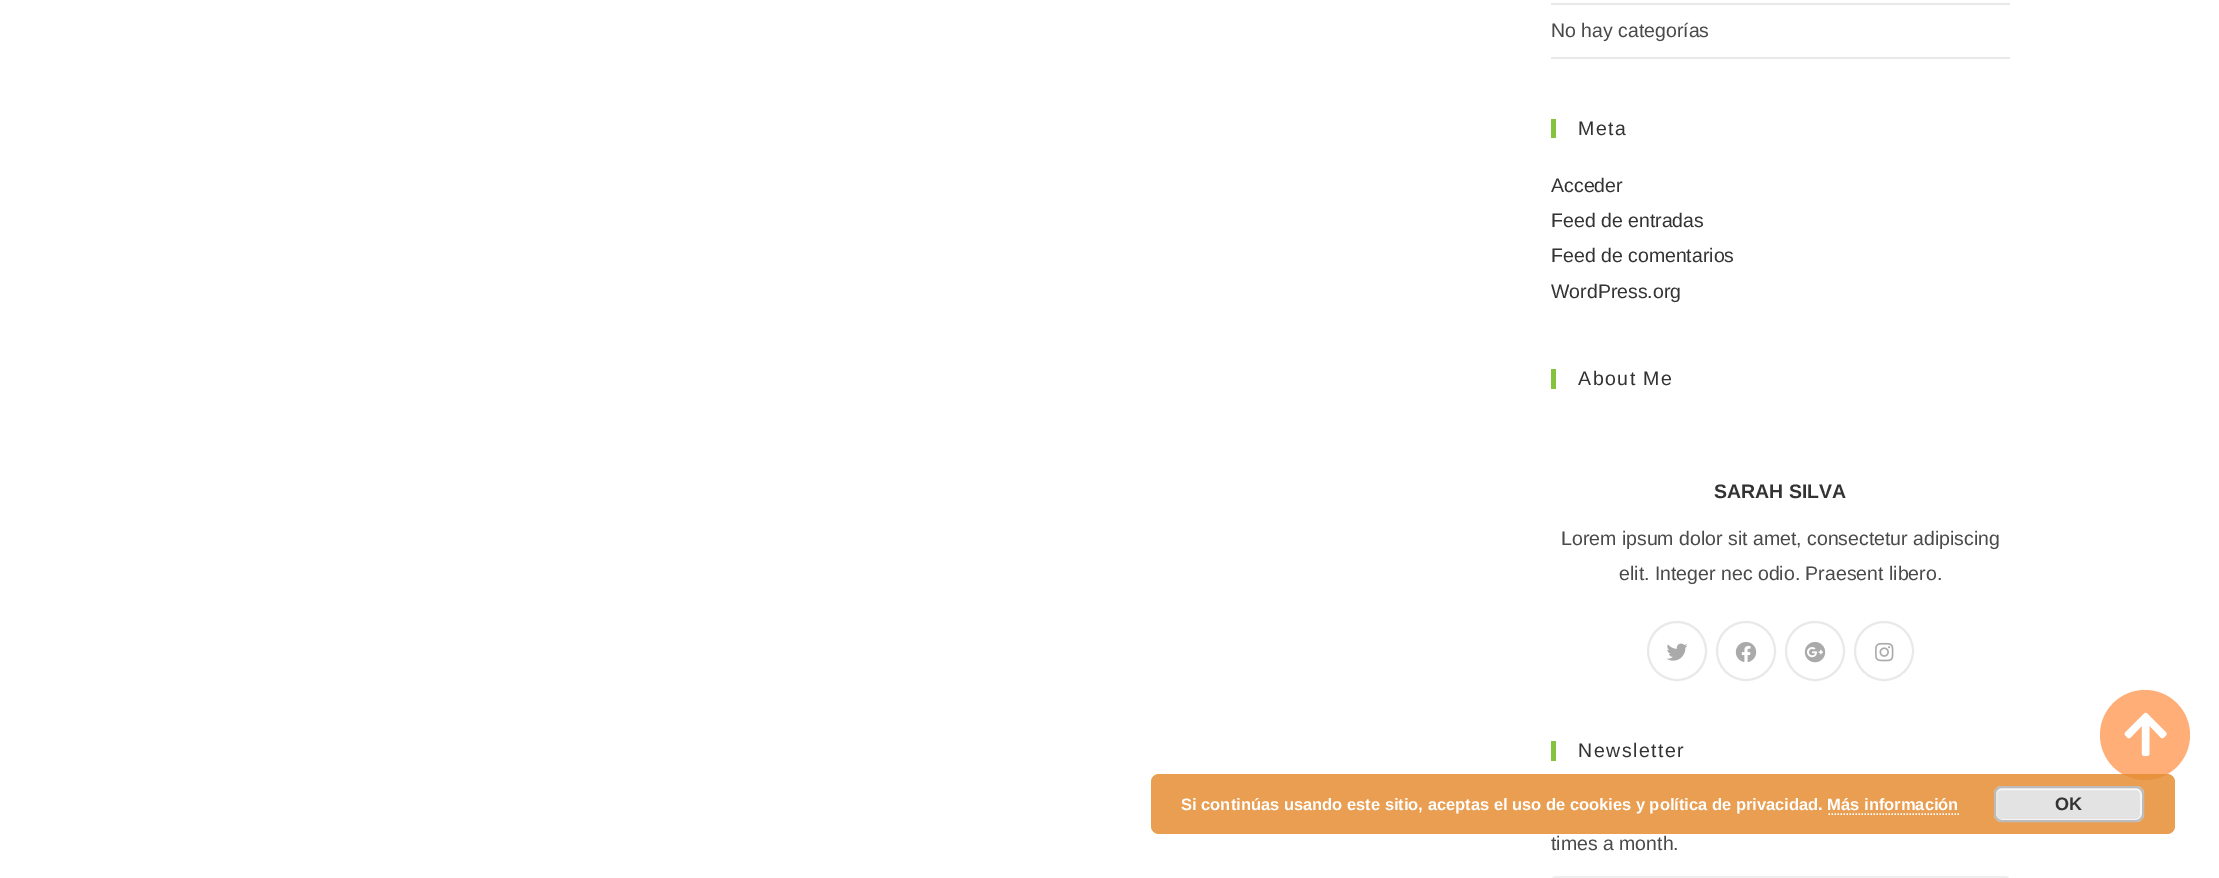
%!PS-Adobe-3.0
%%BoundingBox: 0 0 2219 878
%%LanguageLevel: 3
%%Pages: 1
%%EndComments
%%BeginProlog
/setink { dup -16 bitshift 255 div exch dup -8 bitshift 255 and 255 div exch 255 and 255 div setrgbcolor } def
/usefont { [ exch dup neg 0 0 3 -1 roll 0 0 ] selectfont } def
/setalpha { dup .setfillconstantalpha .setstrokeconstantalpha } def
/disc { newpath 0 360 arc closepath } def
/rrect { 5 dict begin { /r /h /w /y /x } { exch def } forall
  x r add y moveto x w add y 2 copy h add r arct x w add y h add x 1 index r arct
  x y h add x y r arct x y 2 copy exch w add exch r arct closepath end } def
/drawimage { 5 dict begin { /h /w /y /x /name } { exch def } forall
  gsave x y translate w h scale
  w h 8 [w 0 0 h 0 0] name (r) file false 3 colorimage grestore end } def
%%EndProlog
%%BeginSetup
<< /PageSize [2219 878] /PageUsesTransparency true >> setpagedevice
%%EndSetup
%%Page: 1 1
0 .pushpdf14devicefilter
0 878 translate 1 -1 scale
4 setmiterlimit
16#FFFFFF setink
0 0 2219 878 rectfill
16#E9E9E9 setink
1551 3 459 2 rectfill
1551 57 459 2 rectfill
/LiberationSans-Regular 19.5 usefont
16#4A4A4A setink
1551 37 moveto (No hay categorías) show
16#84C340 setink
1551 119 5 19 rectfill
16#333333 setink
1578 135 moveto 1.5 0 (Meta) ashow
[
    [(Acceder) 1551 192]
    [(Feed de entradas) 1551 227]
    [(Feed de comentarios) 1551 262]
    [(WordPress.org) 1551 298]
] { aload pop moveto show } forall
16#84C340 setink
1551 369 5 20 rectfill
16#333333 setink
1578 385 moveto 1.5 0 (About Me) ashow
/LiberationSans-Bold 19.5 usefont
1714 498 moveto (SARAH SILVA) show
/LiberationSans-Regular 19.5 usefont
16#4A4A4A setink
1561 545 moveto (Lorem ipsum dolor sit amet, consectetur adipiscing) show
1619 580 moveto (elit. Integer nec odio. Praesent libero.) show
16#E9E9E9 setink
2 setlinewidth
1677 651 29 disc stroke
(img1.raw) 1666 643 22 18 drawimage
1746 651 29 disc stroke
(img2.raw) 1735 642 22 20 drawimage
1815 651 29 disc stroke
(img3.raw) 1804 642 22 21 drawimage
1884 651 29 disc stroke
(img4.raw) 1875 642 19 20 drawimage
16#84C340 setink
1551 741 5 20 rectfill
16#333333 setink
1578 757 moveto 1.5 0 (Newsletter) ashow
16#4A4A4A setink
1551 850 moveto (times a month.) show
16#EEEEEE setink
1552 877 457 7 4 rrect stroke
16#FFAE78 setink
2145 735 45 disc fill
(img5.raw) 2124 712 43 45 drawimage
0.85 setalpha
16#E58D34 setink
1151 774 1024 60 8 rrect fill
/LiberationSans-Bold 16.5 usefont
1 setalpha
16#FFFFFF setink
1181 810 moveto (Si continúas usando este sitio, aceptas el uso de cookies y política de privacidad. Más información) show
16#E3E3E3 setink
1994 786 150 36 8 rrect fill
16#F6F6F6 setink
1996 789 145 31 5 rrect stroke
16#BBBBBB setink
1995 787 148 34 7 rrect stroke
/LiberationSans-Bold 18 usefont
16#333333 setink
2055 810 moveto (OK) show
16#FFFFFF setink
1.5 setlinewidth
[1.5 1.5] 0 setdash
1828.5 814 moveto 1959 814 lineto stroke
.poppdf14devicefilter showpage
%%EOF
